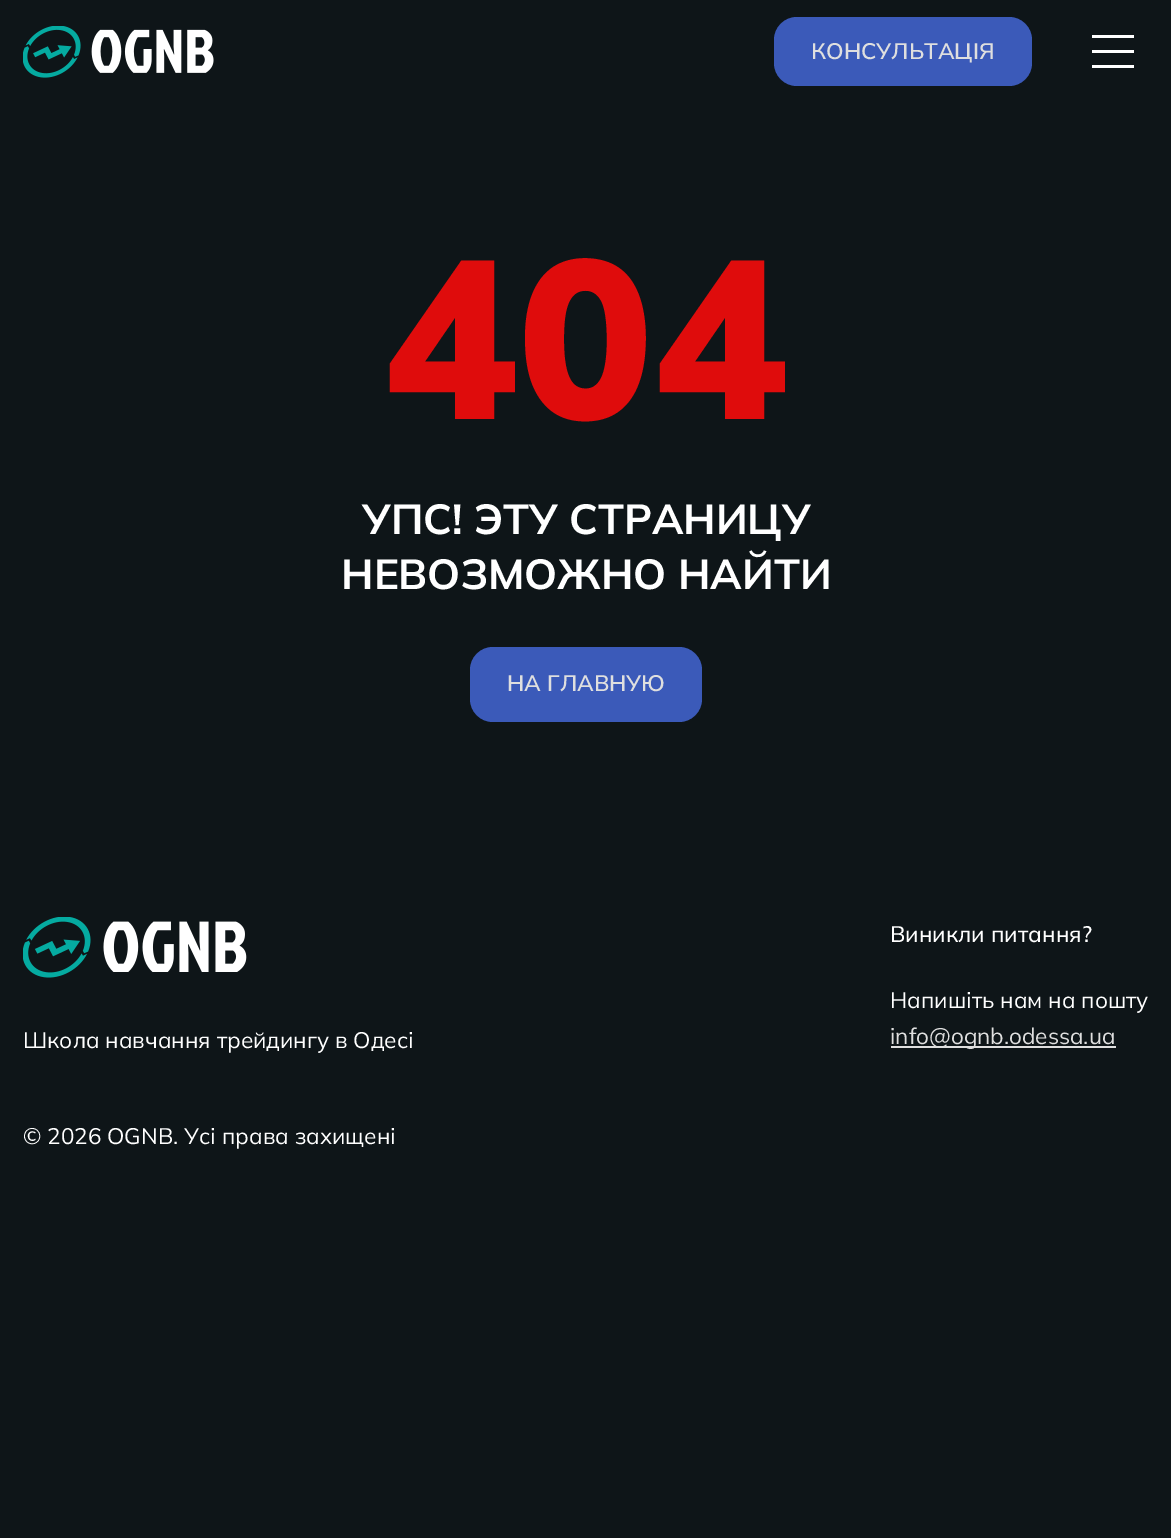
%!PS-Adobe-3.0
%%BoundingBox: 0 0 1171 1538
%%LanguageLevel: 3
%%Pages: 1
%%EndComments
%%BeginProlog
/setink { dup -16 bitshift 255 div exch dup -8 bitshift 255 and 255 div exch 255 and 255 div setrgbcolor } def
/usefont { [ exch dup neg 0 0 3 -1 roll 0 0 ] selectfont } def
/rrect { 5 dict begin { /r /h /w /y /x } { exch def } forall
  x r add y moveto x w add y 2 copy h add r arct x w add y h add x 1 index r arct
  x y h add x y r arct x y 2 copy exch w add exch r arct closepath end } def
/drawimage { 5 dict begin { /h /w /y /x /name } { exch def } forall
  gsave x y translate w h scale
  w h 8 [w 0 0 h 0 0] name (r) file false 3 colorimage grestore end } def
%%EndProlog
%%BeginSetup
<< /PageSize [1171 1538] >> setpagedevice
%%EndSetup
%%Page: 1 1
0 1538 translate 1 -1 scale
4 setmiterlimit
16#0E1518 setink
0 0 1171 1538 rectfill
(img1.raw) 23 26 191 52 drawimage
16#3B5AB9 setink
774 17 258 69 23 rrect fill
/Mulish-SemiBold 22.5 usefont
16#DFDFDF setink
811 59 moveto (КОНСУЛЬТАЦІЯ) show
[
    [1092 35 42 3 16#FFFFFF]
    [1092 50 42 3 16#FFFFFF]
    [1092 65 42 3 16#FFFFFF]
] { aload pop setink rectfill } forall
/Mulish-Black 225 usefont
16#DF0C0C setink
383 419 moveto (404) show
/Mulish-Bold 42 usefont
16#FFFFFF setink
362 534 moveto (УПС! ЭТУ СТРАНИЦУ) show
341 589 moveto (НЕВОЗМОЖНО НАЙТИ) show
16#3B5AB9 setink
470 647 232 75 23 rrect fill
/Mulish-SemiBold 22.5 usefont
16#DFDFDF setink
507 691 moveto (НА ГЛАВНУЮ) show
/Mulish-Medium 22.5 usefont
16#FFFFFF setink
890 942 moveto (Виникли питання?) show
/Mulish-Regular 22.5 usefont
890 1008 moveto (Напишіть нам на пошту) show
16#DFDFDF setink
891 1046 225 2 rectfill
890 1044 moveto (info@ognb.odessa.ua) show
(img2.raw) 23 917 224 61 drawimage
16#FFFFFF setink
23 1048 moveto (Школа навчання трейдингу в Одесі) show
23 1144 moveto (© 2026 OGNB. Усі права захищені) show
showpage
%%EOF
